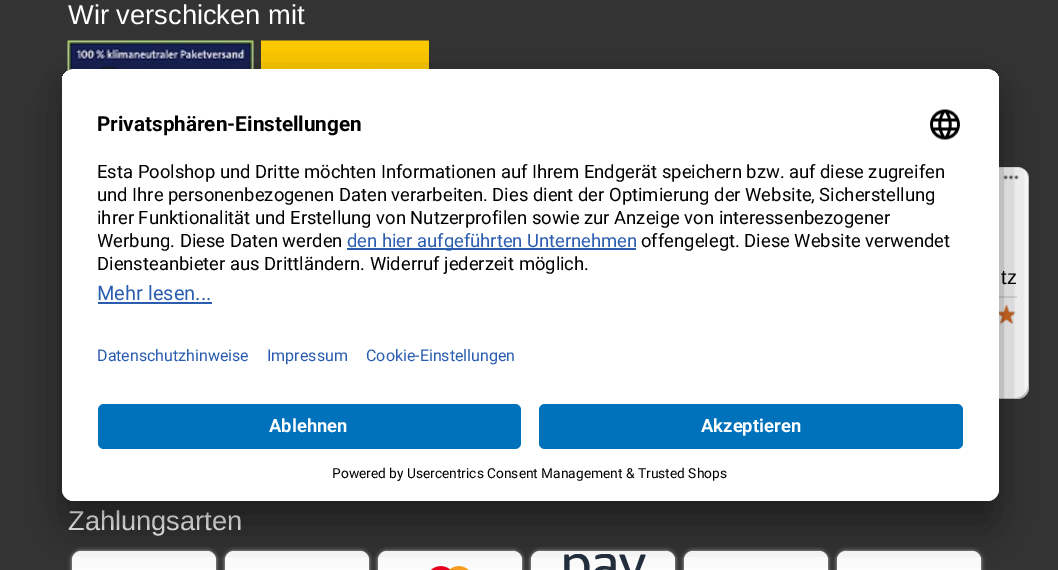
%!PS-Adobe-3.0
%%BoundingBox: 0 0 1058 570
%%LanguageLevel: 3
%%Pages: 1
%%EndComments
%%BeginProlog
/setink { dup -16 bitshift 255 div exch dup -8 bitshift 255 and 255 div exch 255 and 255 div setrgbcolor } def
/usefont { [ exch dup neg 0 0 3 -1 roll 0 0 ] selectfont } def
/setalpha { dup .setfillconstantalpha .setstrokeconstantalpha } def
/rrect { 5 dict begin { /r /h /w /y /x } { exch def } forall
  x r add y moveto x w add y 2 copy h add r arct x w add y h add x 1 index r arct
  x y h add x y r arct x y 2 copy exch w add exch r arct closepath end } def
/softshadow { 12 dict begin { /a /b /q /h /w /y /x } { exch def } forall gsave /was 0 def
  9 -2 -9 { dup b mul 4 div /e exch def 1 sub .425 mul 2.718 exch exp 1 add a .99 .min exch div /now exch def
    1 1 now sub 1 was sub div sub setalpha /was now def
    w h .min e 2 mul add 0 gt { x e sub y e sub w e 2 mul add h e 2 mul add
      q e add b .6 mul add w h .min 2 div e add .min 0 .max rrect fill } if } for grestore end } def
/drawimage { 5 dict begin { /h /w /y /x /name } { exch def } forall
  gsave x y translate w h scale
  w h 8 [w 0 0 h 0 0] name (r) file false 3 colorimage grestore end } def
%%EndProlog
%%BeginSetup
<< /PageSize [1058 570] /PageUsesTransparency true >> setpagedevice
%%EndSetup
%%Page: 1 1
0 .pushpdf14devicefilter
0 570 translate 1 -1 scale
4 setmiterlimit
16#333333 setink
0 0 1058 570 rectfill
/LiberationSans-Regular 27.25 usefont
16#FFFFFF setink
68 24 moveto (Wir verschicken mit) show
(img1.raw) 67 40 187 32 drawimage
(img2.raw) 261 40 168 29 drawimage
68 530 moveto (Zahlungsarten) show
16#C7C7C7 setink
72 551 144 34 9 2 1 softshadow
16#FFFFFF setink
72 551 144 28 9 rrect fill
16#C7C7C7 setink
225 551 144 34 9 2 1 softshadow
16#FFFFFF setink
225 551 144 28 9 rrect fill
16#C7C7C7 setink
378 551 144 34 9 2 1 softshadow
16#FFFFFF setink
378 551 144 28 9 rrect fill
(img3.raw) 431 566 38 4 drawimage
16#C7C7C7 setink
531 551 144 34 9 2 1 softshadow
16#FFFFFF setink
531 551 144 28 9 rrect fill
(img4.raw) 564 554 82 16 drawimage
16#C7C7C7 setink
684 551 144 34 9 2 1 softshadow
16#FFFFFF setink
684 551 144 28 9 rrect fill
16#C7C7C7 setink
837 551 144 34 9 2 1 softshadow
16#FFFFFF setink
837 551 144 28 9 rrect fill
890 167 139 232 12 rrect fill
0.1 setalpha
16#000000 setink
903 168 moveto 1018 168 lineto 1021 168 1023 169 1025 170 curveto 1023 168 1020 167 1017 167 curveto 902 167 lineto 895 167 890 172 890 179 curveto 890 387 lineto 890 390 891 393 893 395 curveto 892 393 891 391 891 388 curveto 891 180 lineto 891 173 896 168 903 168 curveto closepath fill
0.2 setalpha
896 397 moveto 897 398 900 399 902 399 curveto 1017 399 lineto 1024 399 1029 394 1029 387 curveto 1029 179 lineto 1029 177 1028 174 1027 173 curveto 1028 177 lineto 1028 386 lineto 1028 392 1022 398 1016 398 curveto 900 398 lineto closepath fill
16#323232 setink
894 396 moveto 896 398 899 399 902 399 curveto 1017 399 lineto 1024 399 1029 394 1029 387 curveto 1029 179 lineto 1029 176 1028 173 1026 171 curveto 1027 173 1028 175 1028 178 curveto 1028 386 lineto 1028 393 1023 398 1016 398 curveto 901 398 lineto 898 398 896 397 894 396 curveto closepath fill
0.3 setalpha
16#FFFFFF setink
894 396 moveto 896 398 899 399 902 399 curveto 1017 399 lineto 1024 399 1029 394 1029 387 curveto 1029 179 lineto 1029 176 1028 173 1026 171 curveto 1027 173 1028 175 1028 178 curveto 1028 386 lineto 1028 393 1023 398 1016 398 curveto 901 398 lineto 898 398 896 397 894 396 curveto closepath fill
1 setalpha
(img6.raw) 1003 175 16 5 drawimage
16#E5E5E5 setink
999 296 18 2 rectfill
(img8.raw) 999 305 18 19 drawimage
(img7.raw) 999 304 15 20 drawimage
16#000000 setink
62 99 937 432 12 21 0.3 softshadow
62 77 937 432 12 19.5 0.22 softshadow
16#FFFFFF setink
62 69 937 432 12 rrect fill
gsave
62 69 937 432 12 rrect clip newpath
74 69 moveto 987 69 lineto 993.5 69 999 74.5 999 81 curveto 999 392 lineto 62 392 lineto 62 81 lineto 62 74.5 67.5 69 74 69 curveto closepath clip newpath
62 71 937 321 rectfill
grestore
/Roboto-Bold 20.7 usefont
16#000000 setink
97 131 moveto (Privatsphären-Einstellungen) show
(img5.raw) 930 109 30 31 drawimage
/Roboto-Regular 18.4 usefont
[
    [(Esta Poolshop und Dritte möchten Informationen auf Ihrem Endgerät speichern bzw. auf diese zugreifen) 97 178]
    [(und Ihre personenbezogenen Daten verarbeiten. Dies dient der Optimierung der Website, Sicherstellung) 97 201]
    [(ihrer Funktionalität und Erstellung von Nutzerprofilen sowie zur Anzeige von interessenbezogener) 97 224]
] { aload pop moveto show } forall
gsave
98 155 865 127 rectclip
97 247 moveto (Werbung. Diese Daten werden) show
grestore
16#2A5DB0 setink
347 248 289 2 rectfill
347 247 moveto (den hier aufgeführten Unternehmen) show
16#000000 setink
641 247 moveto (offengelegt. Diese Website verwendet) show
97 270 moveto (Diensteanbieter aus Drittländern. Widerruf jederzeit möglich.) show
/Roboto-Regular 20 usefont
16#2A5DB0 setink
97 300 moveto (Mehr lesen...) show
98 302 114 2 rectfill
/Roboto-Regular 16 usefont
[
    [(Datenschutzhinweise) 97 361]
    [(Impressum) 267 361]
    [(Cookie-Einstellungen) 366 361]
] { aload pop moveto show } forall
16#FFFFFF setink
62 392 moveto 999 392 lineto 999 489 lineto 999 495.5 993.5 501 987 501 curveto 74 501 lineto 67.5 501 62 495.5 62 489 curveto closepath fill
16#0071BB setink
98 404 423 45 6 rrect fill
/Roboto-Bold 18.4 usefont
16#FFFFFF setink
269 432 moveto (Ablehnen) show
16#0071BB setink
539 404 424 45 6 rrect fill
16#FFFFFF setink
701 432 moveto (Akzeptieren) show
/Roboto-Regular 13.75 usefont
16#000000 setink
332 478 moveto (Powered by Usercentrics Consent Management) show
626 478 moveto (& Trusted Shops) show
/LiberationSans-Regular 20 usefont
1001 284 moveto (tz) show
.poppdf14devicefilter showpage
%%EOF
